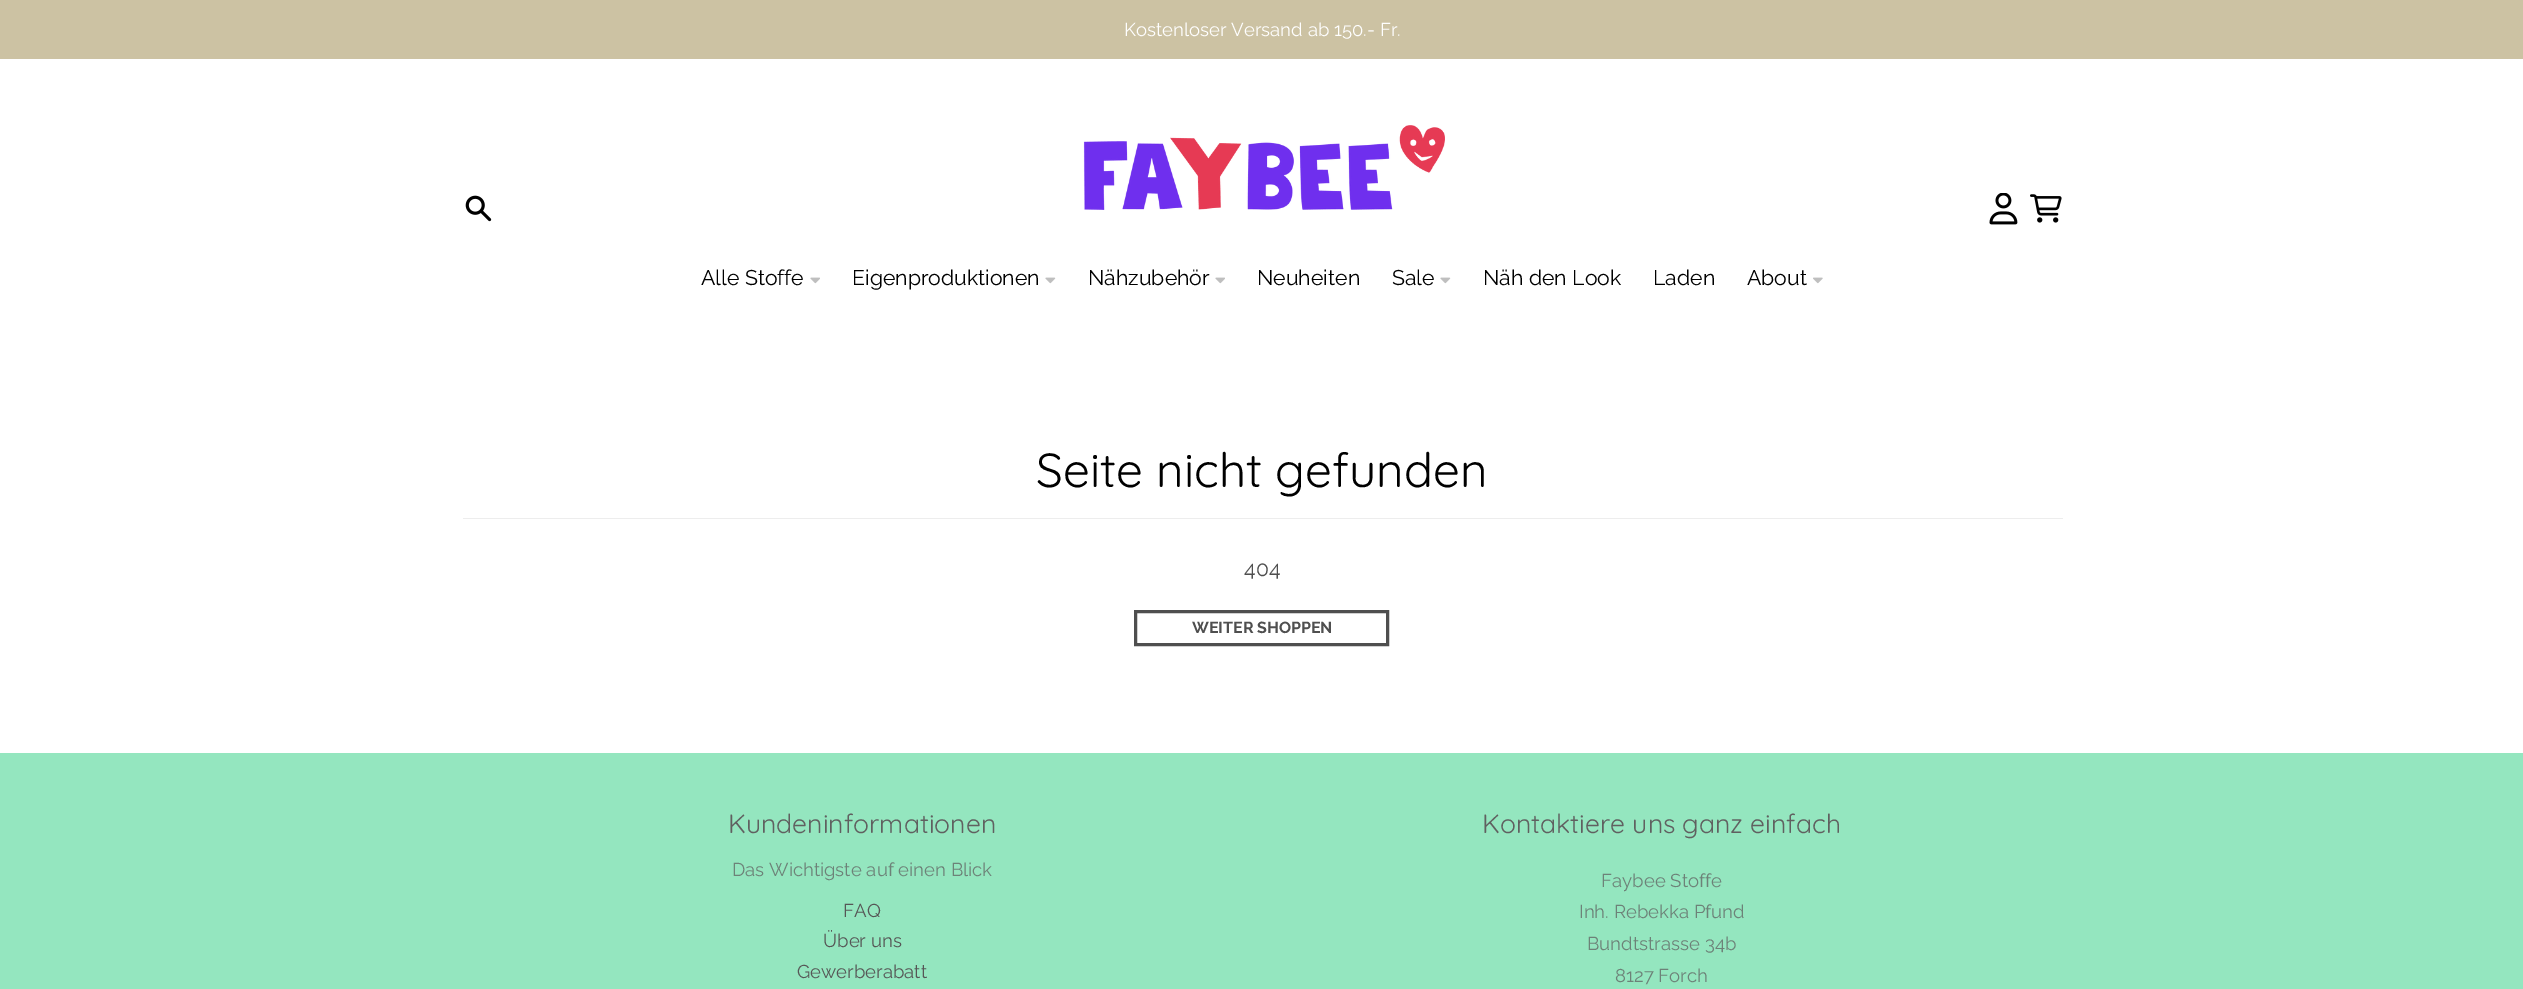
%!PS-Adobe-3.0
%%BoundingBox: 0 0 2523 989
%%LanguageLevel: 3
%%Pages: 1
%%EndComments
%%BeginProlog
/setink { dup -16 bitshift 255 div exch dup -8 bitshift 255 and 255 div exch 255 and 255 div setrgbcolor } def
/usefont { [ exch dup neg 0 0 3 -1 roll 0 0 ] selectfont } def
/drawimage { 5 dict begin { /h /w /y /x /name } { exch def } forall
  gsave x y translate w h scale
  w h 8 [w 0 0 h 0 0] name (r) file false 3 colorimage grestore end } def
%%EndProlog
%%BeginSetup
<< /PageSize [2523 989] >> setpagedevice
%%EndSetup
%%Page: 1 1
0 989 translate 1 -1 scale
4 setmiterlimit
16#94E6BF setink
0 0 2523 989 rectfill
16#CCC2A3 setink
0 0 2523 59 rectfill
/Raleway-Regular 18.6 usefont
16#FFFFFF setink
1124 36 moveto (Kostenloser Versand ab 150.- Fr.) show
0 59 2523 694 rectfill
(img1.raw) 465 195 27 27 drawimage
(img2.raw) 1989 193 29 32 drawimage
(img3.raw) 2030 194 32 29 drawimage
(img4.raw) 1083 125 362 85 drawimage
/Raleway-Regular 21.25 usefont
16#000000 setink
701 285 moveto (Alle Stoffe) show
(img5.raw) 810 277 10 7 drawimage
852 285 moveto (Eigenproduktionen) show
(img6.raw) 1045 277 11 7 drawimage
1088 285 moveto (Nähzubehör) show
(img5.raw) 1215 277 10 7 drawimage
1257 285 moveto (Neuheiten) show
1392 285 moveto (Sale) show
(img6.raw) 1440 277 11 7 drawimage
[
    [(Näh den Look) 1483 285]
    [(Laden) 1653 285]
    [(About) 1747 285]
] { aload pop moveto show } forall
(img7.raw) 1813 277 10 7 drawimage
16#EDEDED setink
463 518 1600 1 rectfill
/Quicksand-Regular 47.75 usefont
16#000000 setink
1036 487 moveto (Seite nicht gefunden) show
/Raleway-Regular 21.25 usefont
16#4F4F4F setink
1244 576 moveto (404) show
3 setlinewidth
1135.5 611.5 252 33 rectstroke
/Raleway-Bold 16 usefont
1192 633 moveto (WEITER SHOPPEN) show
/Quicksand-Regular 26.5 usefont
16#606060 setink
728 833 moveto (Kundeninformationen) show
/Raleway-Regular 18.6 usefont
16#6D8278 setink
732 876 moveto (Das Wichtigste auf einen Blick) show
16#565656 setink
[
    [(FAQ) 843 917]
    [(Über uns) 823 947]
    [(Gewerberabatt) 797 978]
] { aload pop moveto show } forall
/Quicksand-Regular 26.5 usefont
16#606060 setink
1482 833 moveto (Kontaktiere uns ganz einfach) show
/Raleway-Regular 18.6 usefont
16#6D8278 setink
[
    [(Faybee Stoffe) 1601 887]
    [(Inh. Rebekka Pfund) 1579 918]
    [(Bundtstrasse 34b) 1587 950]
    [(8127 Forch) 1615 982]
] { aload pop moveto show } forall
showpage
%%EOF
